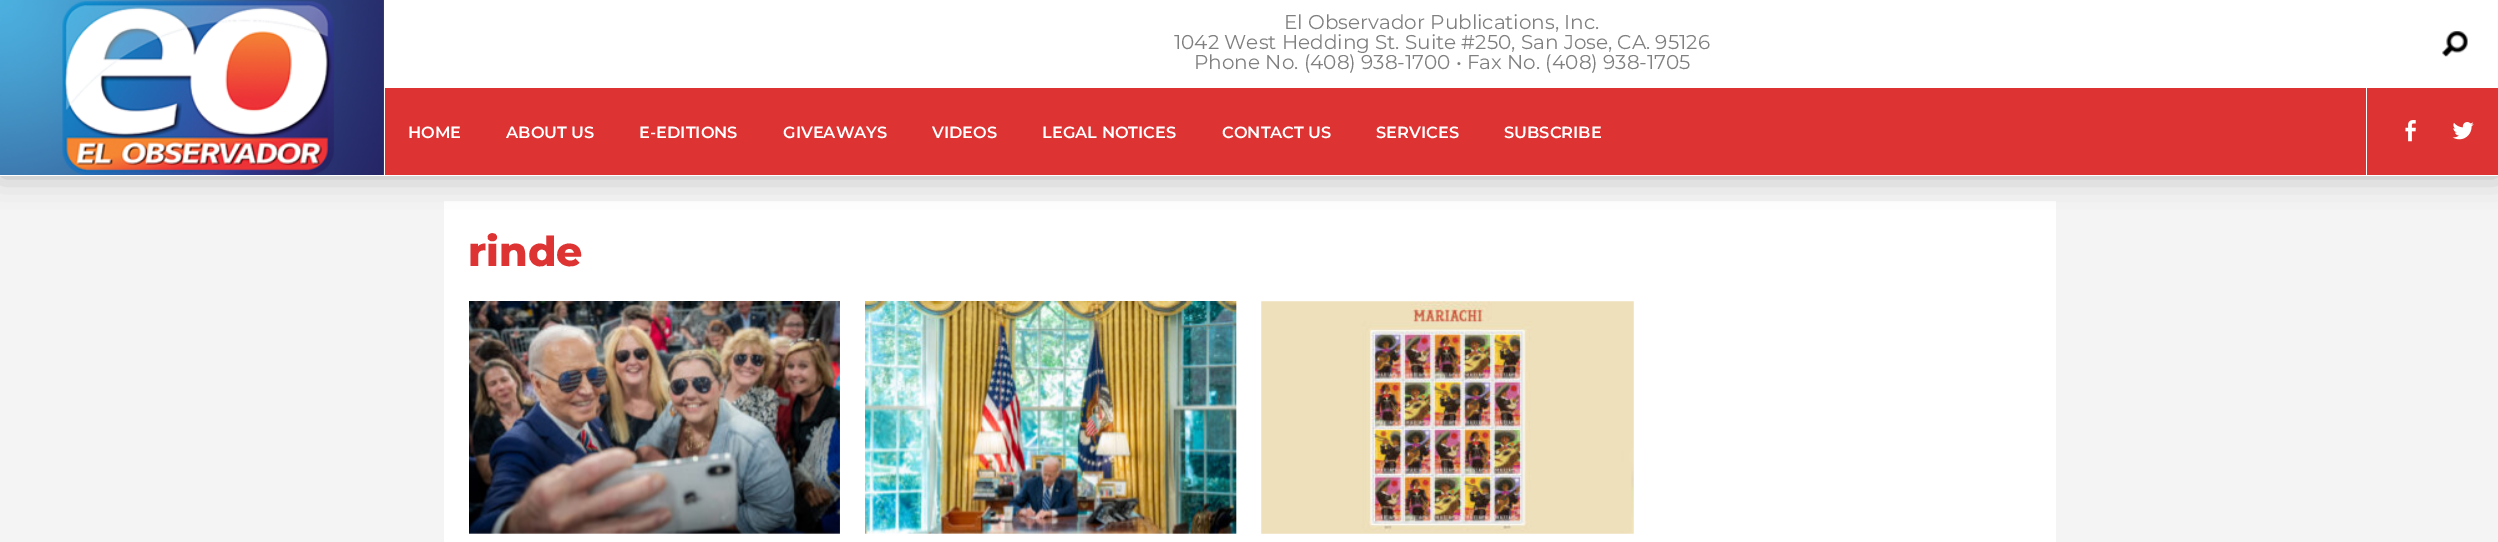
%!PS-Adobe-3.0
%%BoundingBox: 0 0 2498 542
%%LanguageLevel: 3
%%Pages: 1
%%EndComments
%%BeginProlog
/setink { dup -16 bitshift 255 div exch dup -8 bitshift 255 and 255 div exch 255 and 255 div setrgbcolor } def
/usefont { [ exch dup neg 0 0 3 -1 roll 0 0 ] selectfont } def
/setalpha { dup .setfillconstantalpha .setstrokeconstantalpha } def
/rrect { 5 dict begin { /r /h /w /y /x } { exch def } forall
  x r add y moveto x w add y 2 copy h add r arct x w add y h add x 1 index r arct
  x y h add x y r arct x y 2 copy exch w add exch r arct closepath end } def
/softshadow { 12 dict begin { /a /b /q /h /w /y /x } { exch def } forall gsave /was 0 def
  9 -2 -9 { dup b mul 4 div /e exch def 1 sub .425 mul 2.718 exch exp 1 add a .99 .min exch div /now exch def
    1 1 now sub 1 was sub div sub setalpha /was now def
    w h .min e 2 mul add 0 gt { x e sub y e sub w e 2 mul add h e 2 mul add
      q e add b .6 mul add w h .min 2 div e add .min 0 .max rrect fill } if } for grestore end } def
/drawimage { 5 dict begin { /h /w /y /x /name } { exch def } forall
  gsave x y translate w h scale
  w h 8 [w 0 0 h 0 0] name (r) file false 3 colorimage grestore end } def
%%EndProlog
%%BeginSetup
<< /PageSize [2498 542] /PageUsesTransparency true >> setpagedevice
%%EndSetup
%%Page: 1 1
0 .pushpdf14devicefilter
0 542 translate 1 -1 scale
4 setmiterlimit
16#F4F4F4 setink
0 0 2498 542 rectfill
16#FFFFFF setink
444 201 1612 341 rectfill
16#000000 setink
0 0 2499 176 0 15 0.25 softshadow
[
    [383 0 2115 175 16#DD3333]
    [0 175 2498 1 16#FFFFFF]
    [384 0 1 175 16#FFFFFF]
] { aload pop setink rectfill } forall
(img1.raw) 0 0 384 175 drawimage
385 0 2113 88 rectfill
/Montserrat-Regular 20 usefont
16#808080 setink
[
    [(El Observador Publications, Inc.) 1284 29]
    [(1042 West Hedding St. Suite #250, San Jose, CA. 95126) 1174 49]
    [(Phone No. \(408\) 938-1700 • Fax No. \(408\) 938-1705) 1194 69]
] { aload pop moveto show } forall
(img2.raw) 2442 31 26 26 drawimage
/Montserrat-SemiBold 16.25 usefont
16#FFFFFF setink
[
    [(HOME) 408 138]
    [(ABOUT US) 506 138]
    [(E-EDITIONS) 639 138]
    [(GIVEAWAYS) 783 138]
    [(VIDEOS) 932 138]
    [(LEGAL NOTICES) 1042 138]
    [(CONTACT US) 1222 138]
    [(SERVICES) 1376 138]
    [(SUBSCRIBE) 1504 138]
] { aload pop moveto show } forall
2366 88 1 87 rectfill
(img3.raw) 2405 120 11 22 drawimage
(img4.raw) 2452 122 22 18 drawimage
/Montserrat-ExtraBold 41 usefont
16#DD3333 setink
468 266 moveto (rinde) show
(img5.raw) 469 301 371 233 drawimage
(img6.raw) 865 301 372 233 drawimage
(img7.raw) 1261 301 373 233 drawimage
.poppdf14devicefilter showpage
%%EOF
